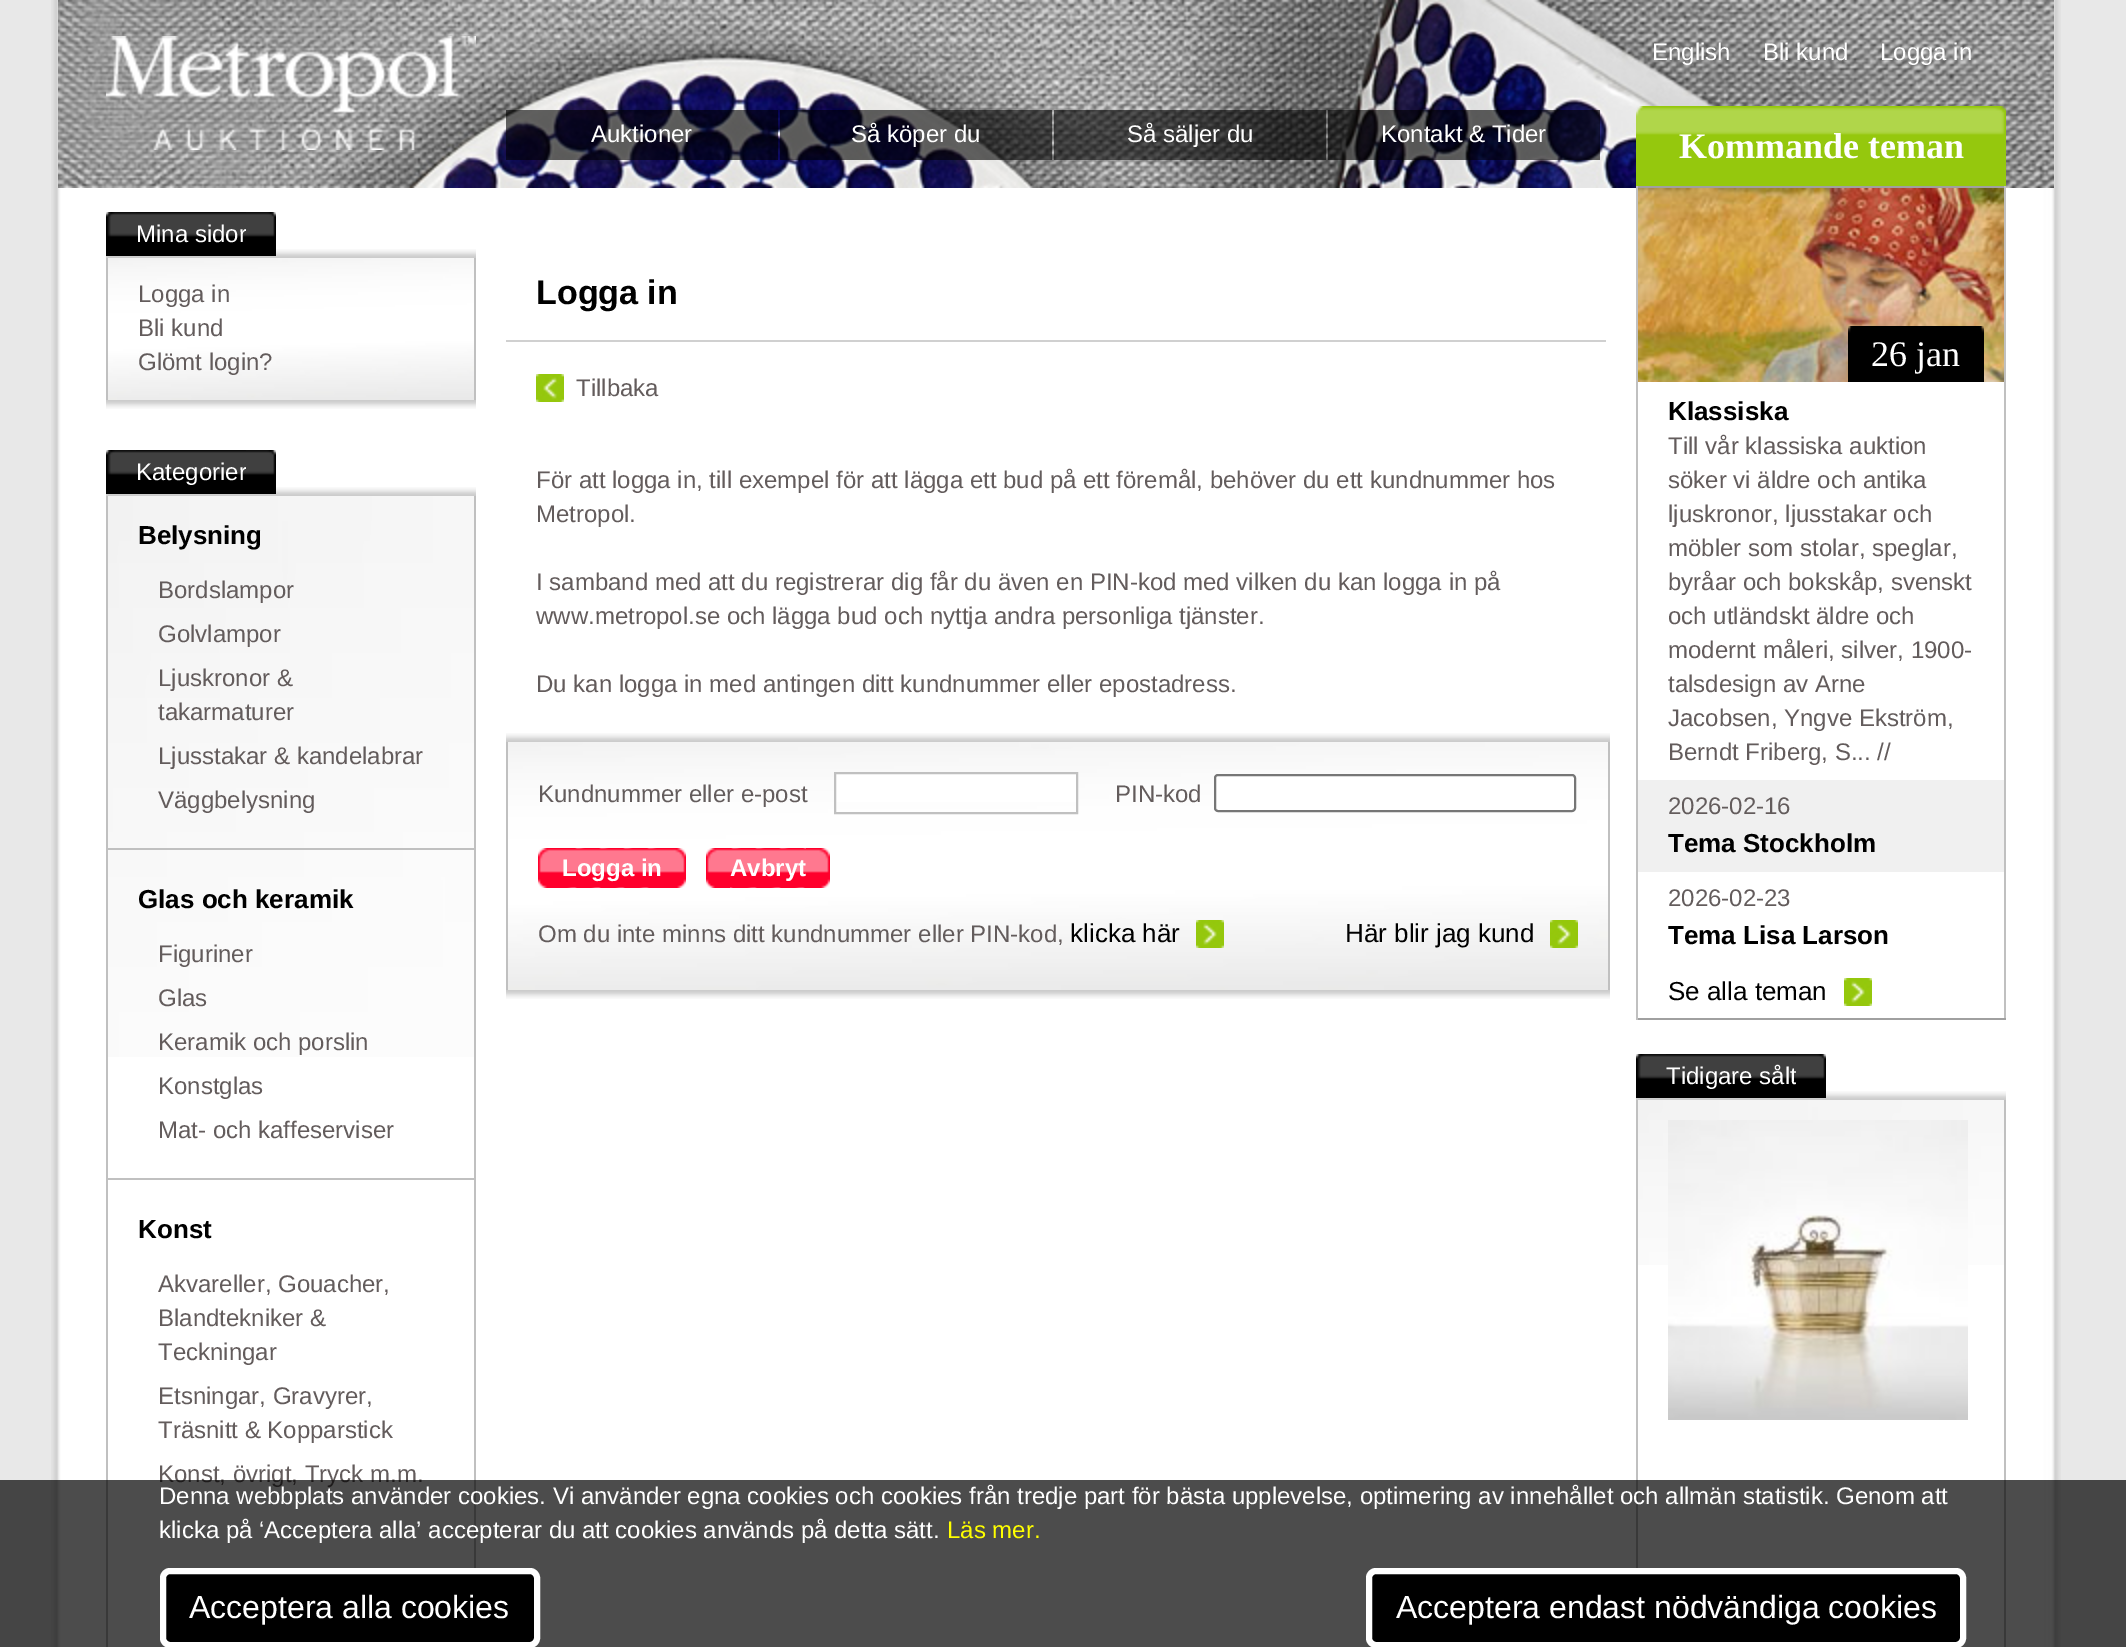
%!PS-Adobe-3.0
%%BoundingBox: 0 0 2126 1647
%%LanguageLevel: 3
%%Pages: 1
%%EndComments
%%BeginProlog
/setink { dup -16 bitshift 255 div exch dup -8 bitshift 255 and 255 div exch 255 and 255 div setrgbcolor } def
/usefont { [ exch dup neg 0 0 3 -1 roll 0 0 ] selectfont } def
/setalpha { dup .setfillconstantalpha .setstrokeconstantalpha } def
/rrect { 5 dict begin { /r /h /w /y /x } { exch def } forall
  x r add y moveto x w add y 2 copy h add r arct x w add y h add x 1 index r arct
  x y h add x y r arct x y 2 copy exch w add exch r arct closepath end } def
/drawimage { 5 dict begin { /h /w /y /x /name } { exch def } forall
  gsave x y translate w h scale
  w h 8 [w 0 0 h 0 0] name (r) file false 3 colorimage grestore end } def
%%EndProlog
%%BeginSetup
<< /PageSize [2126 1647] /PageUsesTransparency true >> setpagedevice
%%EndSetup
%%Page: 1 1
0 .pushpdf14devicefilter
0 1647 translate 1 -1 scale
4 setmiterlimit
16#E8E8E8 setink
0 0 2126 1647 rectfill
(img1.raw) 51 0 2010 1647 drawimage
(img2.raw) 58 0 1996 188 drawimage
(img3.raw) 106 36 370 114 drawimage
0.6 setalpha
16#000000 setink
506 110 272 50 rectfill
/LiberationSans-Regular 24 usefont
1 setalpha
16#FFFFFF setink
591 142 moveto (Auktioner) show
0.6 setalpha
16#000000 setink
780 110 272 50 rectfill
1 setalpha
16#FFFFFF setink
851 142 moveto (Så köper du) show
0.6 setalpha
16#000000 setink
1054 110 272 50 rectfill
1 setalpha
16#FFFFFF setink
1127 142 moveto (Så säljer du) show
0.6 setalpha
16#000000 setink
1328 110 272 50 rectfill
1 setalpha
16#FFFFFF setink
[
    [(Kontakt & Tider) 1381 142]
    [(English) 1652 60]
    [(Bli kund) 1763 60]
    [(Logga in) 1880 60]
] { aload pop moveto show } forall
(img4.raw) 1636 106 370 80 drawimage
/LiberationSerif-Bold 36 usefont
1679 158 moveto (Kommande teman) show
(img8.raw) 106 249 370 9 drawimage
(img5.raw) 106 212 30 44 drawimage
(img6.raw) 136 212 110 44 drawimage
/LiberationSans-Regular 24 usefont
136 242 moveto (Mina sidor) show
(img7.raw) 246 212 30 44 drawimage
(img9.raw) 106 400 370 9 drawimage
16#C0C0C0 setink
474 258 2 142 rectfill
106 258 2 142 rectfill
(img10.raw) 108 258 366 142 drawimage
16#635C5C setink
[
    [(Logga in) 138 302]
    [(Bli kund) 138 336]
    [(Glömt login?) 138 370]
] { aload pop moveto show } forall
(img8.raw) 106 487 370 9 drawimage
(img5.raw) 106 450 30 44 drawimage
(img6.raw) 136 450 110 44 drawimage
16#FFFFFF setink
136 480 moveto (Kategorier) show
(img7.raw) 246 450 30 44 drawimage
16#C0C0C0 setink
474 496 2 1072 rectfill
106 496 2 1151 rectfill
(img11.raw) 108 496 366 561 drawimage
/LiberationSans-Bold 26 usefont
16#000000 setink
138 544 moveto (Belysning) show
/LiberationSans-Regular 24 usefont
16#635C5C setink
[
    [(Bordslampor) 158 598]
    [(Golvlampor) 158 642]
    [(Ljuskronor &) 158 686]
    [(takarmaturer) 158 720]
    [(Ljusstakar & kandelabrar) 158 764]
    [(Väggbelysning) 158 808]
] { aload pop moveto show } forall
16#C0C0C0 setink
108 848 366 2 rectfill
/LiberationSans-Bold 26 usefont
16#000000 setink
138 908 moveto (Glas och keramik) show
/LiberationSans-Regular 24 usefont
16#635C5C setink
[
    [(Figuriner) 158 962]
    [(Glas) 158 1006]
    [(Keramik och porslin) 158 1050]
    [(Konstglas) 158 1094]
    [(Mat- och kaffeserviser) 158 1138]
] { aload pop moveto show } forall
16#C0C0C0 setink
108 1178 366 2 rectfill
/LiberationSans-Bold 26 usefont
16#000000 setink
138 1238 moveto (Konst) show
/LiberationSans-Regular 24 usefont
16#635C5C setink
[
    [(Akvareller, Gouacher,) 158 1292]
    [(Blandtekniker &) 158 1326]
    [(Teckningar) 158 1360]
    [(Etsningar, Gravyrer,) 158 1404]
    [(Träsnitt & Kopparstick) 158 1438]
    [(Konst, övrigt, Tryck m.m.) 158 1482]
] { aload pop moveto show } forall
16#D0D0D0 setink
506 340 1100 2 rectfill
/LiberationSans-Bold 34 usefont
16#000000 setink
536 304 moveto (Logga in) show
(img12.raw) 536 374 28 28 drawimage
/LiberationSans-Regular 24 usefont
16#635C5C setink
[
    [(Tillbaka) 576 396]
    [(För att logga in, till exempel för att lägga ett bud på ett föremål, behöver du ett kundnummer hos) 536 488]
    [(Metropol.) 536 522]
    [(I samband med att du registrerar dig får du även en PIN-kod med vilken du kan logga in på) 536 590]
    [(www.metropol.se och lägga bud och nyttja andra personliga tjänster.) 536 624]
    [(Du kan logga in med antingen ditt kundnummer eller epostadress.) 536 692]
] { aload pop moveto show } forall
(img13.raw) 506 733 1104 9 drawimage
(img14.raw) 506 990 1104 9 drawimage
16#C0C0C0 setink
1608 742 2 248 rectfill
506 742 2 248 rectfill
(img15.raw) 508 742 1100 248 drawimage
16#635C5C setink
538 802 moveto (Kundnummer eller e-post) show
16#FFFFFF setink
836 774 240 28 rectfill
16#C0C0C0 setink
2 setlinewidth
835 773 242 40 rectstroke
16#635C5C setink
1115 802 moveto (PIN-kod) show
16#FFFFFF setink
1215 775 360 36 3 rrect gsave fill grestore
16#767676 setink
stroke
(img16.raw) 538 848 24 40 drawimage
(img17.raw) 562 848 100 40 drawimage
/LiberationSans-Bold 24 usefont
16#FFFFFF setink
562 876 moveto (Logga in) show
(img18.raw) 662 848 24 40 drawimage
(img16.raw) 706 848 24 40 drawimage
(img19.raw) 730 848 76 40 drawimage
730 876 moveto (Avbryt) show
(img18.raw) 806 848 24 40 drawimage
/LiberationSans-Regular 24 usefont
16#635C5C setink
538 942 moveto (Om du inte minns ditt kundnummer eller PIN-kod,) show
/LiberationSans-Regular 26 usefont
16#000000 setink
1070 942 moveto (klicka här) show
(img20.raw) 1196 920 28 28 drawimage
(img20.raw) 1550 920 28 28 drawimage
1345 942 moveto (Här blir jag kund) show
[
    [1636 186 370 2 16#A0A0A0]
    [2004 186 2 834 16#C0C0C0]
    [1636 1018 370 2 16#A0A0A0]
    [1636 186 2 834 16#C0C0C0]
] { aload pop setink rectfill } forall
(img21.raw) 1638 188 366 194 drawimage
(img22.raw) 1848 326 24 56 drawimage
16#000000 setink
1872 326 88 56 rectfill
/LiberationSerif-Regular 36 usefont
16#FFFFFF setink
1871 366 moveto (26 jan) show
(img23.raw) 1960 326 24 56 drawimage
/LiberationSans-Bold 26 usefont
16#000000 setink
1668 420 moveto (Klassiska) show
/LiberationSans-Regular 24 usefont
16#635C5C setink
[
    [(Till vår klassiska auktion) 1668 454]
    [(söker vi äldre och antika) 1668 488]
    [(ljuskronor, ljusstakar och) 1668 522]
    [(möbler som stolar, speglar,) 1668 556]
    [(byråar och bokskåp, svenskt) 1668 590]
    [(och utländskt äldre och) 1668 624]
    [(modernt måleri, silver, 1900-) 1668 658]
    [(talsdesign av Arne) 1668 692]
    [(Jacobsen, Yngve Ekström,) 1668 726]
    [(Berndt Friberg, S... //) 1668 760]
] { aload pop moveto show } forall
16#F0F0F0 setink
1638 780 366 92 rectfill
16#635C5C setink
1668 814 moveto (2026-02-16) show
/LiberationSans-Bold 26 usefont
16#000000 setink
1668 852 moveto (Tema Stockholm) show
/LiberationSans-Regular 24 usefont
16#635C5C setink
1668 906 moveto (2026-02-23) show
/LiberationSans-Bold 26 usefont
16#000000 setink
1668 944 moveto (Tema Lisa Larson) show
/LiberationSans-Regular 26 usefont
1668 1000 moveto (Se alla teman) show
(img20.raw) 1844 978 28 28 drawimage
(img8.raw) 1636 1091 370 9 drawimage
(img5.raw) 1636 1054 30 44 drawimage
(img24.raw) 1666 1054 130 44 drawimage
/LiberationSans-Regular 24 usefont
16#FFFFFF setink
1666 1084 moveto (Tidigare sålt) show
(img7.raw) 1796 1054 30 44 drawimage
16#C0C0C0 setink
2004 1100 2 547 rectfill
1636 1100 2 468 rectfill
(img25.raw) 1638 1100 366 165 drawimage
(img26.raw) 1668 1120 300 300 drawimage
0.7 setalpha
16#000000 setink
0 1480 2126 167 rectfill
1 setalpha
16#FFFFFF setink
159 1504 moveto (Denna webbplats använder cookies. Vi använder egna cookies och cookies från tredje part för bästa upplevelse, optimering av innehållet och allmän statistik. Genom att) show
159 1538 moveto (klicka på ‘Acceptera alla’ accepterar du att cookies används på detta sätt.) show
16#FFFF00 setink
947 1538 moveto (Läs mer.) show
16#000000 setink
163 1571 374 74 7 rrect gsave fill grestore
16#FFFFFF setink
6 setlinewidth
stroke
/LiberationSans-Regular 32 usefont
189 1618 moveto (Acceptera alla cookies) show
16#000000 setink
1369 1571 594 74 7 rrect gsave fill grestore
16#FFFFFF setink
stroke
1396 1618 moveto (Acceptera endast nödvändiga cookies) show
.poppdf14devicefilter showpage
%%EOF
